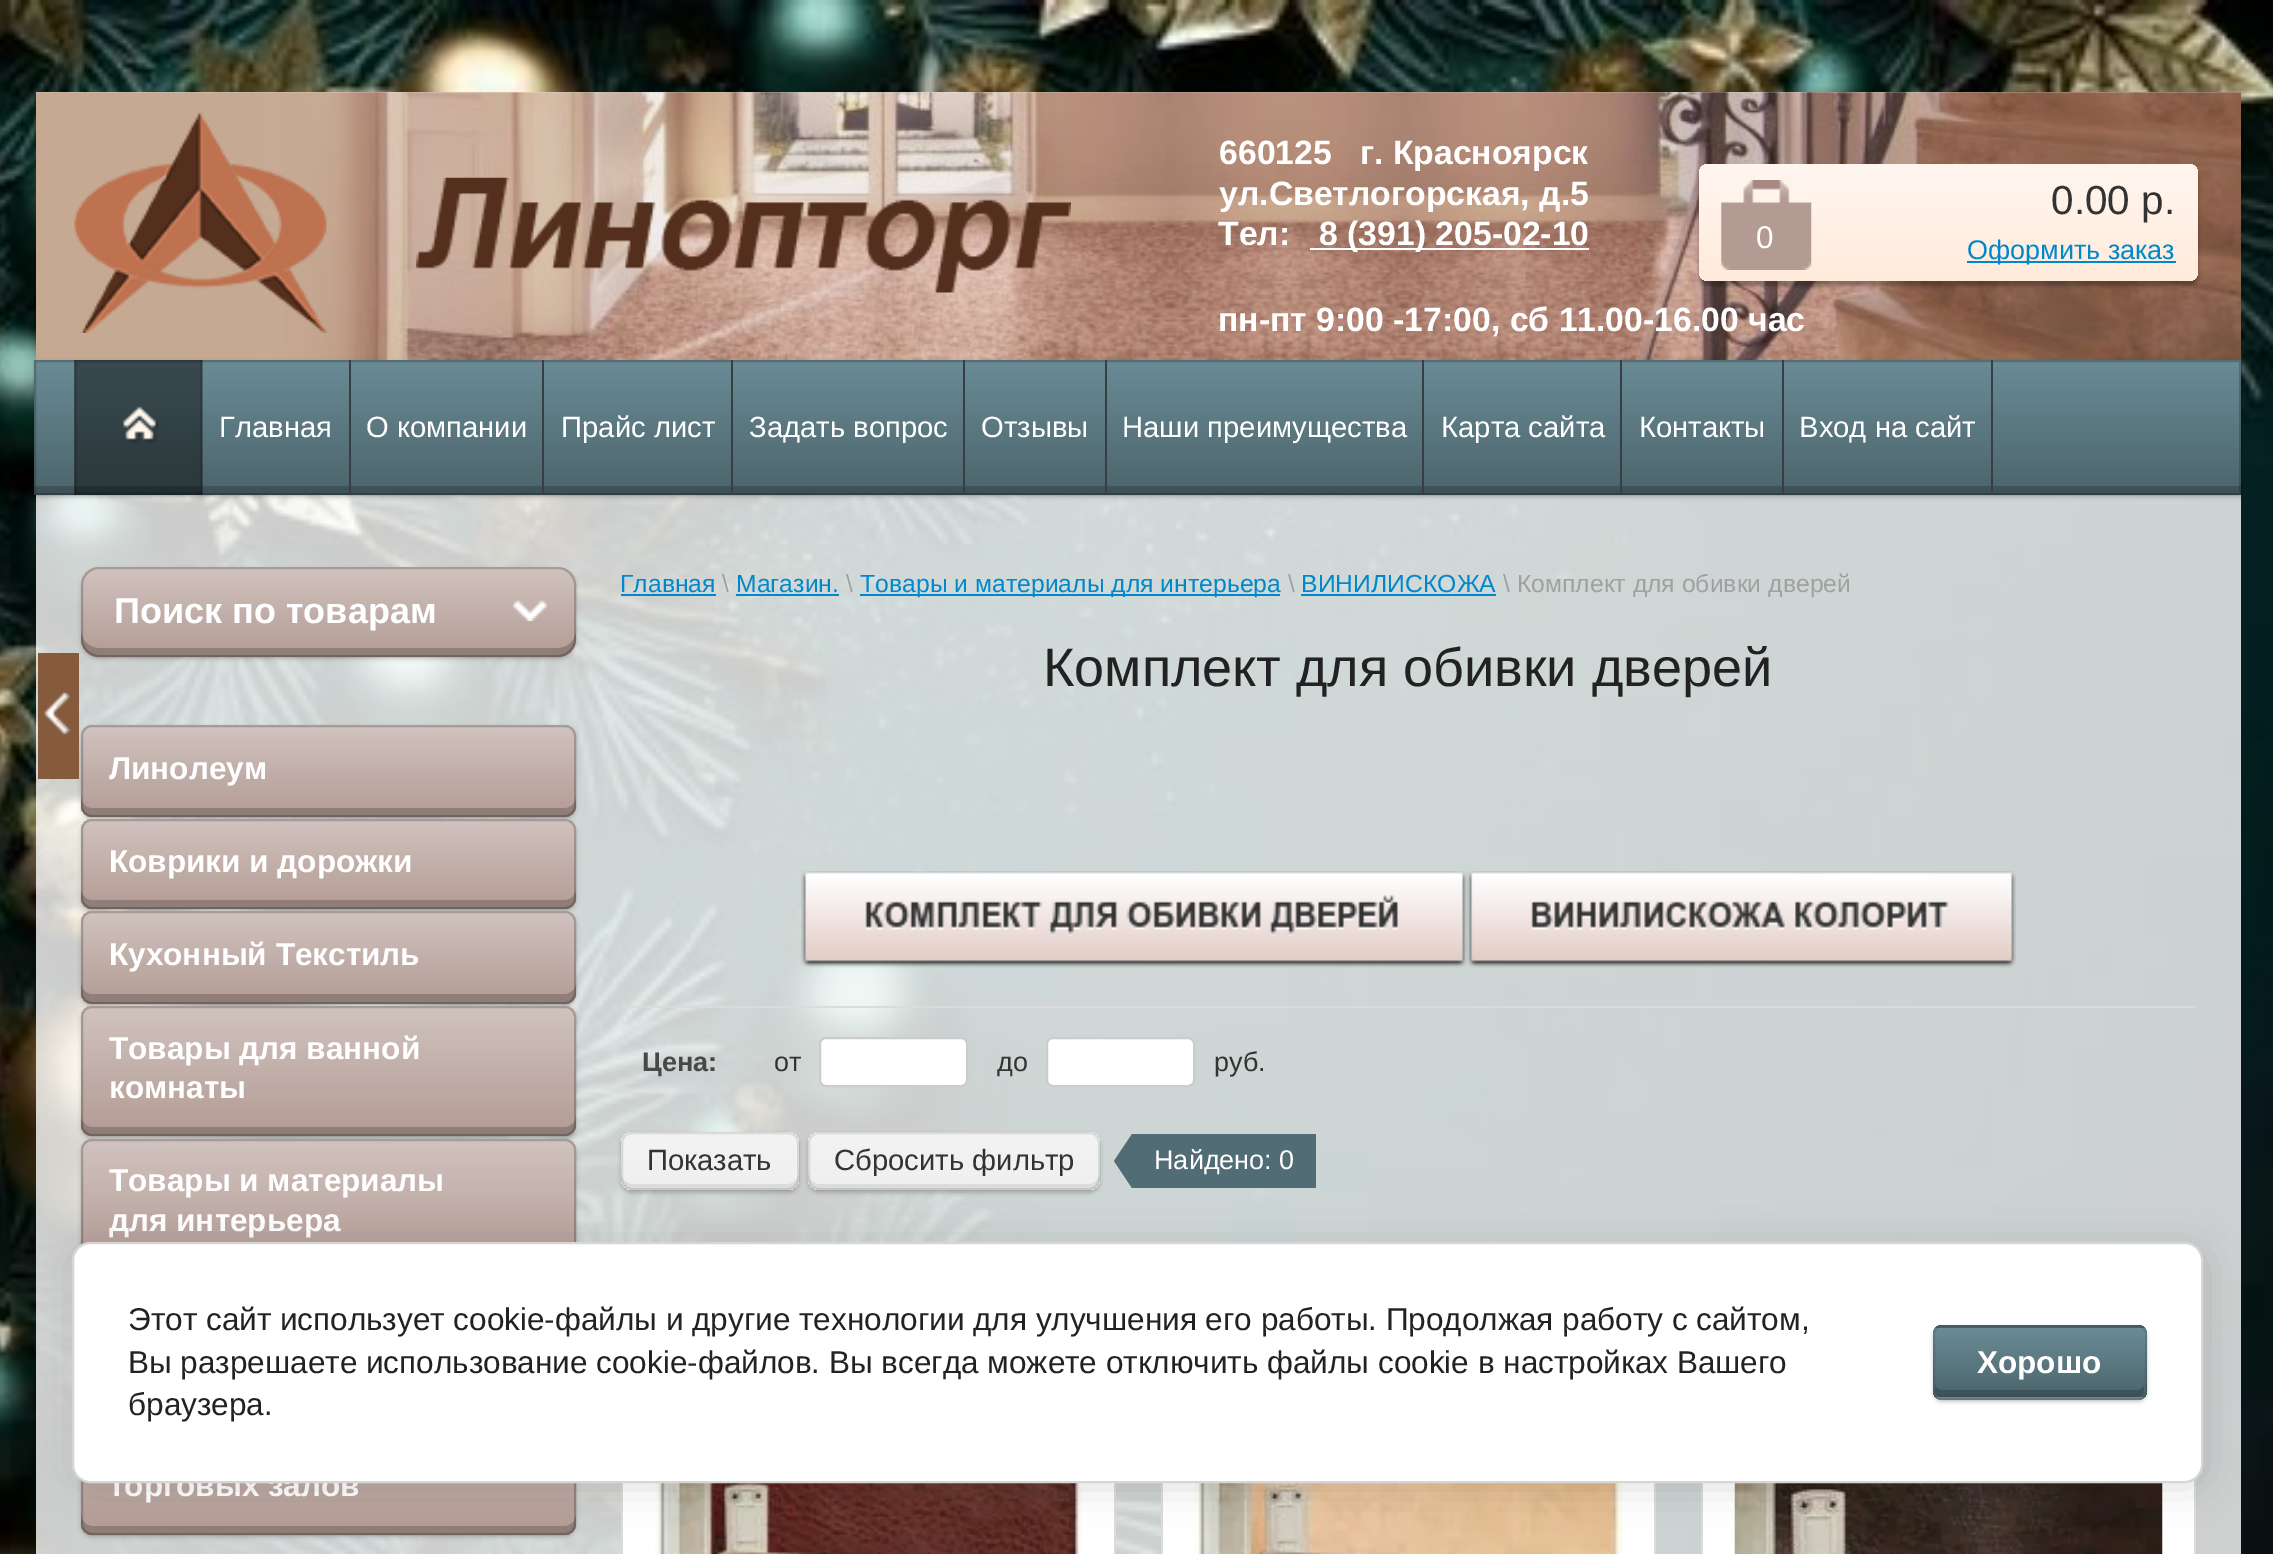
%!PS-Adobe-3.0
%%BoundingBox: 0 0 2273 1554
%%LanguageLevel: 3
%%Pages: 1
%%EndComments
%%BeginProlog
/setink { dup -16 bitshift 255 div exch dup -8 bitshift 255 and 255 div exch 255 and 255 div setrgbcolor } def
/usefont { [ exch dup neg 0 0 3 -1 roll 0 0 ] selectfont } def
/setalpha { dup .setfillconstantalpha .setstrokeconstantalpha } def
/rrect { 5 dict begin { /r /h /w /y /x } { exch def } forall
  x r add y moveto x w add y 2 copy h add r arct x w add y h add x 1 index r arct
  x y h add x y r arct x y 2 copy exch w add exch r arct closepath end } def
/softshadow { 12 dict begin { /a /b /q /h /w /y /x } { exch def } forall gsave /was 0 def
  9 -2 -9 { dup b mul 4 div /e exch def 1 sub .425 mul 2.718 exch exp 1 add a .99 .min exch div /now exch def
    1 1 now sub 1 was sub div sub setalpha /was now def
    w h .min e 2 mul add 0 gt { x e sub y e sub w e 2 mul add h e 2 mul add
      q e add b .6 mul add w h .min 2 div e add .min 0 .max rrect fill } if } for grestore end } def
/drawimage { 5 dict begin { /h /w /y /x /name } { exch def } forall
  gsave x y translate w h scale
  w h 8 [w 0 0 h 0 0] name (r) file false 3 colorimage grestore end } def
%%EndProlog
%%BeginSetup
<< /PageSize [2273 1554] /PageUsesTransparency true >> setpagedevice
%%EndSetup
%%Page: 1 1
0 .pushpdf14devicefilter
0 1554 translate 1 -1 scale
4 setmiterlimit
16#FFFFFF setink
0 0 2273 1554 rectfill
(img1.raw) 0 0 2273 1554 drawimage
(img2.raw) 36 92 2205 268 drawimage
(img3.raw) 74 112 253 221 drawimage
(img4.raw) 416 177 655 116 drawimage
/LiberationSans-Bold 33.75 usefont
[
    [(660125   г. Красноярск) 1219 164]
    [(ул.Светлогорская, д.5) 1219 205]
    [(Тел:) 1218 245]
] { aload pop moveto show } forall
1310 248 279 2 rectfill
1319 245 moveto (8 \(391\) 205-02-10) show
1218 331 moveto (пн-пт 9:00 -17:00, сб 11.00-16.00 час) show
16#000000 setink
1699 169 499 117 9 2 0.3 softshadow
gsave 1699 164 499 117 9 rrect clip newpath
<< /ShadingType 2 /ColorSpace /DeviceRGB /Coords [1949 164 1949 281] /Extend [true true] /Function << /FunctionType 2 /Domain [0 1] /C0 [1 0.965 0.941] /C1 [1 0.922 0.859] /N 1 >> >> shfill grestore
(img5.raw) 1721 180 91 90 drawimage
/LiberationSans-Regular 31.5 usefont
16#FFFFFF setink
1756 248 moveto (0) show
/LiberationSans-Regular 40.5 usefont
16#333333 setink
2051 214 moveto (0.00 р.) show
16#0088CC setink
1967 261 209 2 rectfill
/LiberationSans-Regular 27 usefont
1967 259 moveto (Оформить заказ) show
16#000000 setink
34 362 2207 135 0 2 0.2 softshadow
gsave 34 360 moveto 2241 360 lineto 2241 495 lineto 34 495 lineto closepath clip newpath
<< /ShadingType 2 /ColorSpace /DeviceRGB /Coords [1137 360 1137 495] /Extend [true true] /Function << /FunctionType 2 /Domain [0 1] /C0 [0.416 0.549 0.588] /C1 [0.298 0.392 0.42] /N 1 >> >> shfill grestore
0.2 setalpha
2 setlinewidth
35 361 2205 133 rectstroke
34 486 2207 9 rectfill
1 setalpha
(img6.raw) 74 360 129 135 drawimage
16#393E44 setink
349 360 2 135 rectfill
/LiberationSans-Regular 29.25 usefont
16#FFFFFF setink
219 437 moveto (Главная) show
16#393E44 setink
542 360 2 135 rectfill
16#FFFFFF setink
366 437 moveto (О компании) show
16#393E44 setink
731 360 2 135 rectfill
16#FFFFFF setink
561 437 moveto (Прайс лист) show
16#393E44 setink
963 360 2 135 rectfill
16#FFFFFF setink
749 437 moveto (Задать вопрос) show
16#393E44 setink
1105 360 2 135 rectfill
16#FFFFFF setink
981 437 moveto (Отзывы) show
16#393E44 setink
1422 360 2 135 rectfill
16#FFFFFF setink
1122 437 moveto (Наши преимущества) show
16#393E44 setink
1620 360 2 135 rectfill
16#FFFFFF setink
1441 437 moveto (Карта сайта) show
16#393E44 setink
1782 360 2 135 rectfill
16#FFFFFF setink
1639 437 moveto (Контакты) show
16#393E44 setink
1991 360 2 135 rectfill
16#FFFFFF setink
1799 437 moveto (Вход на сайт) show
16#000000 setink
81 569 495 90 18 2 0.2 softshadow
81 727 495 92 11 2 0.2 softshadow
16#865A3C setink
38 653 41 126 rectfill
(img7.raw) 44 692 27 44 drawimage
gsave 81 567 495 90 18 rrect clip newpath
<< /ShadingType 2 /ColorSpace /DeviceRGB /Coords [329 567 329 657] /Extend [true true] /Function << /FunctionType 2 /Domain [0 1] /C0 [0.82 0.765 0.749] /C1 [0.702 0.608 0.58] /N 1 >> >> shfill grestore
0.2 setalpha
16#000000 setink
82 568 493 88 17 rrect stroke
81 630 moveto 81 639 lineto 81 649 89 657 99 657 curveto 558 657 lineto 568 657 576 649 576 639 curveto 576 630 lineto 576 640 568 648 558 648 curveto 99 648 lineto 89 648 81 640 81 630 curveto closepath fill
/LiberationSans-Bold 36 usefont
1 setalpha
16#FFFFFF setink
114 623 moveto (Поиск по товарам) show
(img8.raw) 513 600 34 21 drawimage
gsave 81 725 495 92 11 rrect clip newpath
<< /ShadingType 2 /ColorSpace /DeviceRGB /Coords [329 725 329 817] /Extend [true true] /Function << /FunctionType 2 /Domain [0 1] /C0 [0.82 0.765 0.749] /C1 [0.702 0.608 0.58] /N 1 >> >> shfill grestore
0.2 setalpha
16#000000 setink
82 726 493 90 10 rrect stroke
81 796 moveto 81 806 lineto 81 812 86 817 92 817 curveto 565 817 lineto 571 817 576 812 576 806 curveto 576 796 lineto 576 803 571 808 565 808 curveto 92 808 lineto 86 808 81 803 81 796 curveto closepath fill
/LiberationSans-Bold 31.5 usefont
1 setalpha
16#FFFFFF setink
109 779 moveto (Линолеум) show
16#000000 setink
81 821 495 90 11 2 0.2 softshadow
gsave 81 819 495 90 11 rrect clip newpath
<< /ShadingType 2 /ColorSpace /DeviceRGB /Coords [329 819 329 909] /Extend [true true] /Function << /FunctionType 2 /Domain [0 1] /C0 [0.82 0.765 0.749] /C1 [0.702 0.608 0.58] /N 1 >> >> shfill grestore
0.2 setalpha
82 820 493 88 10 rrect stroke
81 889 moveto 81 898 lineto 81 904 86 909 92 909 curveto 565 909 lineto 571 909 576 904 576 898 curveto 576 889 lineto 576 895 571 900 565 900 curveto 92 900 lineto 86 900 81 895 81 889 curveto closepath fill
1 setalpha
16#FFFFFF setink
109 872 moveto (Коврики и дорожки) show
16#000000 setink
81 914 495 92 11 2 0.2 softshadow
gsave 81 911 495 93 11 rrect clip newpath
<< /ShadingType 2 /ColorSpace /DeviceRGB /Coords [329 911 329 1004] /Extend [true true] /Function << /FunctionType 2 /Domain [0 1] /C0 [0.82 0.765 0.749] /C1 [0.702 0.608 0.58] /N 1 >> >> shfill grestore
0.2 setalpha
82 912 493 91 10 rrect stroke
81 983 moveto 81 993 lineto 81 999 86 1004 92 1004 curveto 565 1004 lineto 571 1004 576 999 576 993 curveto 576 983 lineto 576 989 571 994 565 994 curveto 92 994 lineto 86 994 81 989 81 983 curveto closepath fill
1 setalpha
16#FFFFFF setink
109 965 moveto (Кухонный Текстиль) show
16#000000 setink
81 1008 495 131 11 2 0.2 softshadow
gsave 81 1006 495 130 11 rrect clip newpath
<< /ShadingType 2 /ColorSpace /DeviceRGB /Coords [329 1006 329 1136] /Extend [true true] /Function << /FunctionType 2 /Domain [0 1] /C0 [0.82 0.765 0.749] /C1 [0.702 0.608 0.58] /N 1 >> >> shfill grestore
0.2 setalpha
82 1007 493 128 10 rrect stroke
81 1116 moveto 81 1125 lineto 81 1131 86 1136 92 1136 curveto 565 1136 lineto 571 1136 576 1131 576 1125 curveto 576 1116 lineto 576 1122 571 1127 565 1127 curveto 92 1127 lineto 86 1127 81 1122 81 1116 curveto closepath fill
1 setalpha
16#FFFFFF setink
109 1059 moveto (Товары для ванной) show
109 1098 moveto (комнаты) show
16#000000 setink
81 1141 495 130 11 2 0.2 softshadow
gsave 81 1139 495 130 11 rrect clip newpath
<< /ShadingType 2 /ColorSpace /DeviceRGB /Coords [329 1139 329 1269] /Extend [true true] /Function << /FunctionType 2 /Domain [0 1] /C0 [0.82 0.765 0.749] /C1 [0.702 0.608 0.58] /N 1 >> >> shfill grestore
0.2 setalpha
82 1140 493 128 10 rrect stroke
1 setalpha
16#FFFFFF setink
109 1191 moveto (Товары и материалы) show
109 1231 moveto (для интерьера) show
16#000000 setink
81 1406 495 131 11 2 0.2 softshadow
gsave 81 1404 495 131 11 rrect clip newpath
<< /ShadingType 2 /ColorSpace /DeviceRGB /Coords [329 1404 329 1535] /Extend [true true] /Function << /FunctionType 2 /Domain [0 1] /C0 [0.82 0.765 0.749] /C1 [0.702 0.608 0.58] /N 1 >> >> shfill grestore
0.2 setalpha
82 1405 493 129 10 rrect stroke
81 1514 moveto 81 1524 lineto 81 1530 86 1535 92 1535 curveto 565 1535 lineto 571 1535 576 1530 576 1524 curveto 576 1514 lineto 576 1520 571 1526 565 1526 curveto 92 1526 lineto 86 1526 81 1520 81 1514 curveto closepath fill
1 setalpha
16#FFFFFF setink
109 1496 moveto (торговых залов) show
/LiberationSans-Regular 24.75 usefont
16#0088CC setink
620 592 moveto (Главная) show
621 594 95 2 rectfill
16#A0A0A0 setink
722 592 moveto (\\) show
16#0088CC setink
736 592 moveto (Магазин.) show
736 594 103 2 rectfill
16#A0A0A0 setink
846 592 moveto (\\) show
16#0088CC setink
860 594 420 2 rectfill
860 592 moveto (Товары и материалы для интерьера) show
16#A0A0A0 setink
1288 592 moveto (\\) show
16#0088CC setink
1301 592 moveto (ВИНИЛИСКОЖА) show
1301 594 195 2 rectfill
16#A0A0A0 setink
1503 592 moveto (\\ Комплект для обивки дверей) show
/LiberationSans-Regular 54 usefont
16#222222 setink
1043 686 moveto (Комплект для обивки дверей) show
(img9.raw) 801 871 666 97 drawimage
(img10.raw) 1467 871 549 97 drawimage
16#DBDBDB setink
621 1006 1575 2 rectfill
/LiberationSans-Bold 27 usefont
16#484848 setink
642 1071 moveto (Цена:) show
/LiberationSans-Regular 27 usefont
16#333333 setink
774 1071 moveto (от) show
16#FFFFFF setink
820 1038 147 48 6 rrect gsave fill grestore
16#CCCCCC setink
stroke
16#333333 setink
997 1071 moveto (до) show
16#FFFFFF setink
1047 1038 147 48 6 rrect gsave fill grestore
16#CCCCCC setink
stroke
16#333333 setink
1214 1071 moveto (руб.) show
16#000000 setink
621 1134 178 59 11 2 0.2 softshadow
gsave 621 1132 178 58 11 rrect clip newpath
<< /ShadingType 2 /ColorSpace /DeviceRGB /Coords [710 1132 710 1190] /Extend [true true] /Function << /FunctionType 2 /Domain [0 1] /C0 [0.953 0.953 0.953] /C1 [0.937 0.937 0.937] /N 1 >> >> shfill grestore
0.1 setalpha
622 1133 176 56 10 rrect stroke
0.08 setalpha
621 1172 moveto 621 1179 lineto 621 1185 626 1190 632 1190 curveto 788 1190 lineto 794 1190 799 1185 799 1179 curveto 799 1172 lineto 799 1178 794 1184 788 1184 curveto 632 1184 lineto 626 1184 621 1178 621 1172 curveto closepath fill
/LiberationSans-Regular 29.25 usefont
1 setalpha
16#333333 setink
647 1170 moveto (Показать) show
16#000000 setink
808 1134 292 59 11 2 0.2 softshadow
gsave 808 1132 292 58 11 rrect clip newpath
<< /ShadingType 2 /ColorSpace /DeviceRGB /Coords [954 1132 954 1190] /Extend [true true] /Function << /FunctionType 2 /Domain [0 1] /C0 [0.953 0.953 0.953] /C1 [0.937 0.937 0.937] /N 1 >> >> shfill grestore
0.1 setalpha
809 1133 290 56 10 rrect stroke
0.08 setalpha
808 1172 moveto 808 1179 lineto 808 1185 813 1190 819 1190 curveto 1089 1190 lineto 1095 1190 1100 1185 1100 1179 curveto 1100 1172 lineto 1100 1178 1095 1184 1089 1184 curveto 819 1184 lineto 813 1184 808 1178 808 1172 curveto closepath fill
1 setalpha
16#333333 setink
834 1170 moveto (Сбросить фильтр) show
16#516C75 setink
1132 1134 184 54 rectfill
1132 1134 moveto 1132 1188 lineto 1114 1161 lineto closepath fill
/LiberationSans-Regular 27 usefont
16#FFFFFF setink
1154 1169 moveto (Найдено: 0) show
623 1483 491 71 rectfill
16#DBDBDB setink
632 1368 moveto 1105 1368 lineto 1111 1368 1116 1373 1116 1379 curveto 1116 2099 lineto 621 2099 lineto 621 1379 lineto 621 1373 626 1368 632 1368 curveto closepath 632 1370 moveto 1105 1370 lineto 1110 1370 1114 1374 1114 1379 curveto 1114 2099 lineto 623 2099 lineto 623 1379 lineto 623 1374 627 1370 632 1370 curveto closepath eofill
(img11.raw) 655 1483 427 71 drawimage
16#FFFFFF setink
1163 1483 491 71 rectfill
16#DBDBDB setink
1172 1368 moveto 1645 1368 lineto 1651 1368 1656 1373 1656 1379 curveto 1656 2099 lineto 1161 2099 lineto 1161 1379 lineto 1161 1373 1166 1368 1172 1368 curveto closepath 1172 1370 moveto 1645 1370 lineto 1650 1370 1654 1374 1654 1379 curveto 1654 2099 lineto 1163 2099 lineto 1163 1379 lineto 1163 1374 1167 1370 1172 1370 curveto closepath eofill
(img12.raw) 1194 1483 429 71 drawimage
16#FFFFFF setink
1703 1480 491 74 rectfill
16#DBDBDB setink
1712 1368 moveto 2185 1368 lineto 2191 1368 2196 1373 2196 1379 curveto 2196 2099 lineto 1701 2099 lineto 1701 1379 lineto 1701 1373 1706 1368 1712 1368 curveto closepath 1712 1370 moveto 2185 1370 lineto 2190 1370 2194 1374 2194 1379 curveto 2194 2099 lineto 1703 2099 lineto 1703 1379 lineto 1703 1374 1707 1370 1712 1370 curveto closepath eofill
(img13.raw) 1734 1483 429 71 drawimage
16#000000 setink
77 1247 2130 240 18 20 0.14 softshadow
16#FFFFFF setink
73 1243 2129 239 17 rrect gsave fill grestore
16#D6D6D6 setink
stroke
/LiberationSans-Regular 31.5 usefont
16#222222 setink
[
    [(Этот сайт использует cookie-файлы и другие технологии для улучшения его работы. Продолжая работу с сайтом,) 128 1330]
    [(Вы разрешаете использование cookie-файлов. Вы всегда можете отключить файлы cookie в настройках Вашего) 128 1373]
    [(браузера.) 128 1415]
] { aload pop moveto show } forall
16#000000 setink
1933 1328 214 74 9 2 0.2 softshadow
gsave
1933 1325 214 75 9 rrect clip newpath
gsave 1933 1325 moveto 2147 1325 lineto 2147 1328 lineto 1933 1328 lineto closepath clip newpath
<< /ShadingType 2 /ColorSpace /DeviceRGB /Coords [2040 1258 2040 1328] /Extend [true true] /Function << /FunctionType 2 /Domain [0 1] /C0 [0.416 0.549 0.588] /C1 [0.298 0.392 0.42] /N 1 >> >> shfill grestore
gsave 1933 1328 moveto 2147 1328 lineto 2147 1397 lineto 1933 1397 lineto closepath clip newpath
<< /ShadingType 2 /ColorSpace /DeviceRGB /Coords [2040 1328 2040 1397] /Extend [true true] /Function << /FunctionType 2 /Domain [0 1] /C0 [0.416 0.549 0.588] /C1 [0.298 0.392 0.42] /N 1 >> >> shfill grestore
gsave 1933 1397 moveto 2147 1397 lineto 2147 1400 lineto 1933 1400 lineto closepath clip newpath
<< /ShadingType 2 /ColorSpace /DeviceRGB /Coords [2040 1397 2040 1467] /Extend [true true] /Function << /FunctionType 2 /Domain [0 1] /C0 [0.416 0.549 0.588] /C1 [0.298 0.392 0.42] /N 1 >> >> shfill grestore
grestore
0.2 setalpha
1935 1384 moveto 1935 1390 lineto 1935 1394 1938 1397 1942 1397 curveto 2137 1397 lineto 2141 1397 2144 1394 2144 1390 curveto 2144 1384 lineto 2144 1387 2141 1390 2138 1390 curveto 1942 1390 lineto 1938 1390 1935 1387 1935 1384 curveto closepath fill
0.1 setalpha
1934 1326 212 73 8 rrect stroke
/LiberationSans-Bold 31.5 usefont
1 setalpha
16#FFFFFF setink
1977 1373 moveto (Хорошо) show
.poppdf14devicefilter showpage
%%EOF
